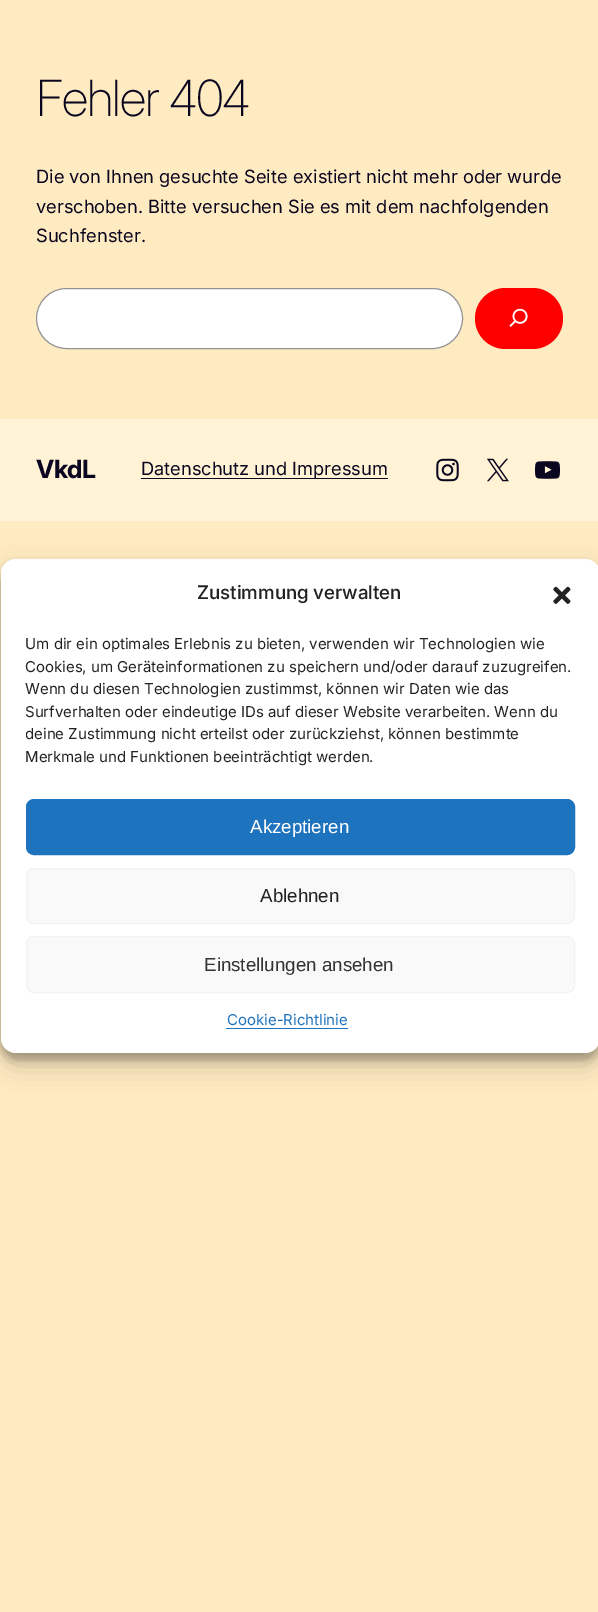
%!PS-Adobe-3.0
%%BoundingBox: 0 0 598 1612
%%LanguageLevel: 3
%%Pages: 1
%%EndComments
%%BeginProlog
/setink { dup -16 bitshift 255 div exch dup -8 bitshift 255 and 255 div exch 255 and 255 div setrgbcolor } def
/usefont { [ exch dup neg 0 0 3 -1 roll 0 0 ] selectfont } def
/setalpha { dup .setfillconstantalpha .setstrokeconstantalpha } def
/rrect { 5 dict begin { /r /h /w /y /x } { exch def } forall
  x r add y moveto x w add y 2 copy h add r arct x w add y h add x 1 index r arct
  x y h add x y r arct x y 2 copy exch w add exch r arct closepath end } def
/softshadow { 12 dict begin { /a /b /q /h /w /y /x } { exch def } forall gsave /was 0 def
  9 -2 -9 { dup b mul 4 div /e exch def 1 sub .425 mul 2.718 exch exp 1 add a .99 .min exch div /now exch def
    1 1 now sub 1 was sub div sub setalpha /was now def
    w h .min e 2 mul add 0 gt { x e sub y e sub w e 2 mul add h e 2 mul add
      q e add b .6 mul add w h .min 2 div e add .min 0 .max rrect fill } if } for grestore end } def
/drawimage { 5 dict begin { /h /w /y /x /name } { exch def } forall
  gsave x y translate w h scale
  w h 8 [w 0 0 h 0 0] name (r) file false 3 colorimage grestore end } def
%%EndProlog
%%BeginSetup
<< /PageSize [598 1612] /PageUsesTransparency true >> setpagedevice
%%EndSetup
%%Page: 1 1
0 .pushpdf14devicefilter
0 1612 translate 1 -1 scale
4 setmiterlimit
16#FFEBC1 setink
0 0 598 1612 rectfill
/Inter-ExtraLight 50 usefont
16#0B0620 setink
36 116 moveto -1 0 (Fehler 404) ashow
/Inter-Regular 18.3 usefont
[
    [(Die von Ihnen gesuchte Seite existiert nicht mehr oder wurde) 36 183]
    [(verschoben. Bitte versuchen Sie es mit dem nachfolgenden) 36 213]
    [(Suchfenster.) 36 242]
] { aload pop moveto show } forall
16#FFFFFF setink
36.5 288.5 426 60 30 rrect gsave fill grestore
16#949494 setink
stroke
16#FE0000 setink
475 288 88 61 30.5 rrect fill
(img1.raw) 509 308 19 19 drawimage
16#FFF2D5 setink
0 419 598 102 rectfill
/Inter-Bold 25 usefont
16#0B0620 setink
36 478 moveto -0.5 0 (VkdL) ashow
141 478 247 1 rectfill
/Inter-Regular 18.3 usefont
141 475 moveto (Datenschutz und Impressum) show
(img2.raw) 436 458 23 24 drawimage
(img3.raw) 487 458 22 24 drawimage
(img4.raw) 535 461 25 18 drawimage
gsave
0 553 moveto 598 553 lineto 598 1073 lineto 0 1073 lineto closepath 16 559 moveto 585 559 lineto 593.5 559 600 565.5 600 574 curveto 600 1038 lineto 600 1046.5 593.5 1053 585 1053 curveto 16 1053 lineto 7.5 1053 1 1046.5 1 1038 curveto 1 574 lineto 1 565.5 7.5 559 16 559 curveto closepath eoclip newpath
16#000000 setink
1 566 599 494 15 4 0.23 softshadow
grestore
16#000000 setink
1 571 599 494 15 12.5 0.19 softshadow
16#FFFFFF setink
1 559 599 494 15 rrect fill
/Inter-Medium 18.75 usefont
16#222222 setink
197 599 moveto (Zustimmung verwalten) show
(img5.raw) 553 586 18 18 drawimage
/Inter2-Regular 15 usefont
[
    [(Um dir ein optimales Erlebnis zu bieten, verwenden wir Technologien wie) 25 649]
    [(Cookies, um Geräteinformationen zu speichern und/oder darauf zuzugreifen.) 25 672]
    [(Wenn du diesen Technologien zustimmst, können wir Daten wie das) 25 694]
    [(Surfverhalten oder eindeutige IDs auf dieser Website verarbeiten. Wenn du) 25 717]
] { aload pop moveto show } forall
gsave
26 633 549 141 rectclip
25 739 moveto (deine Zustimmung nicht erteilst oder zurückziehst, können bestimmte) show
grestore
25 762 moveto (Merkmale und Funktionen beeinträchtigt werden.) show
16#1E73BE setink
26.5 799.5 548 55 7.5 rrect gsave fill grestore
stroke
/LiberationSans-Regular 18.75 usefont
16#FFFFFF setink
250 833 moveto (Akzeptieren) show
16#F9F9F9 setink
26.5 868.5 548 55 7.5 rrect gsave fill grestore
16#F2F2F2 setink
stroke
16#222222 setink
260 902 moveto (Ablehnen) show
16#F9F9F9 setink
26.5 936.5 548 56 7.5 rrect gsave fill grestore
16#F2F2F2 setink
stroke
16#333333 setink
204 971 moveto (Einstellungen ansehen) show
/Inter2-Regular 15 usefont
16#1E73BE setink
227 1025 moveto (Cookie-Richtlinie) show
226 1028 122 1 rectfill
.poppdf14devicefilter showpage
%%EOF
